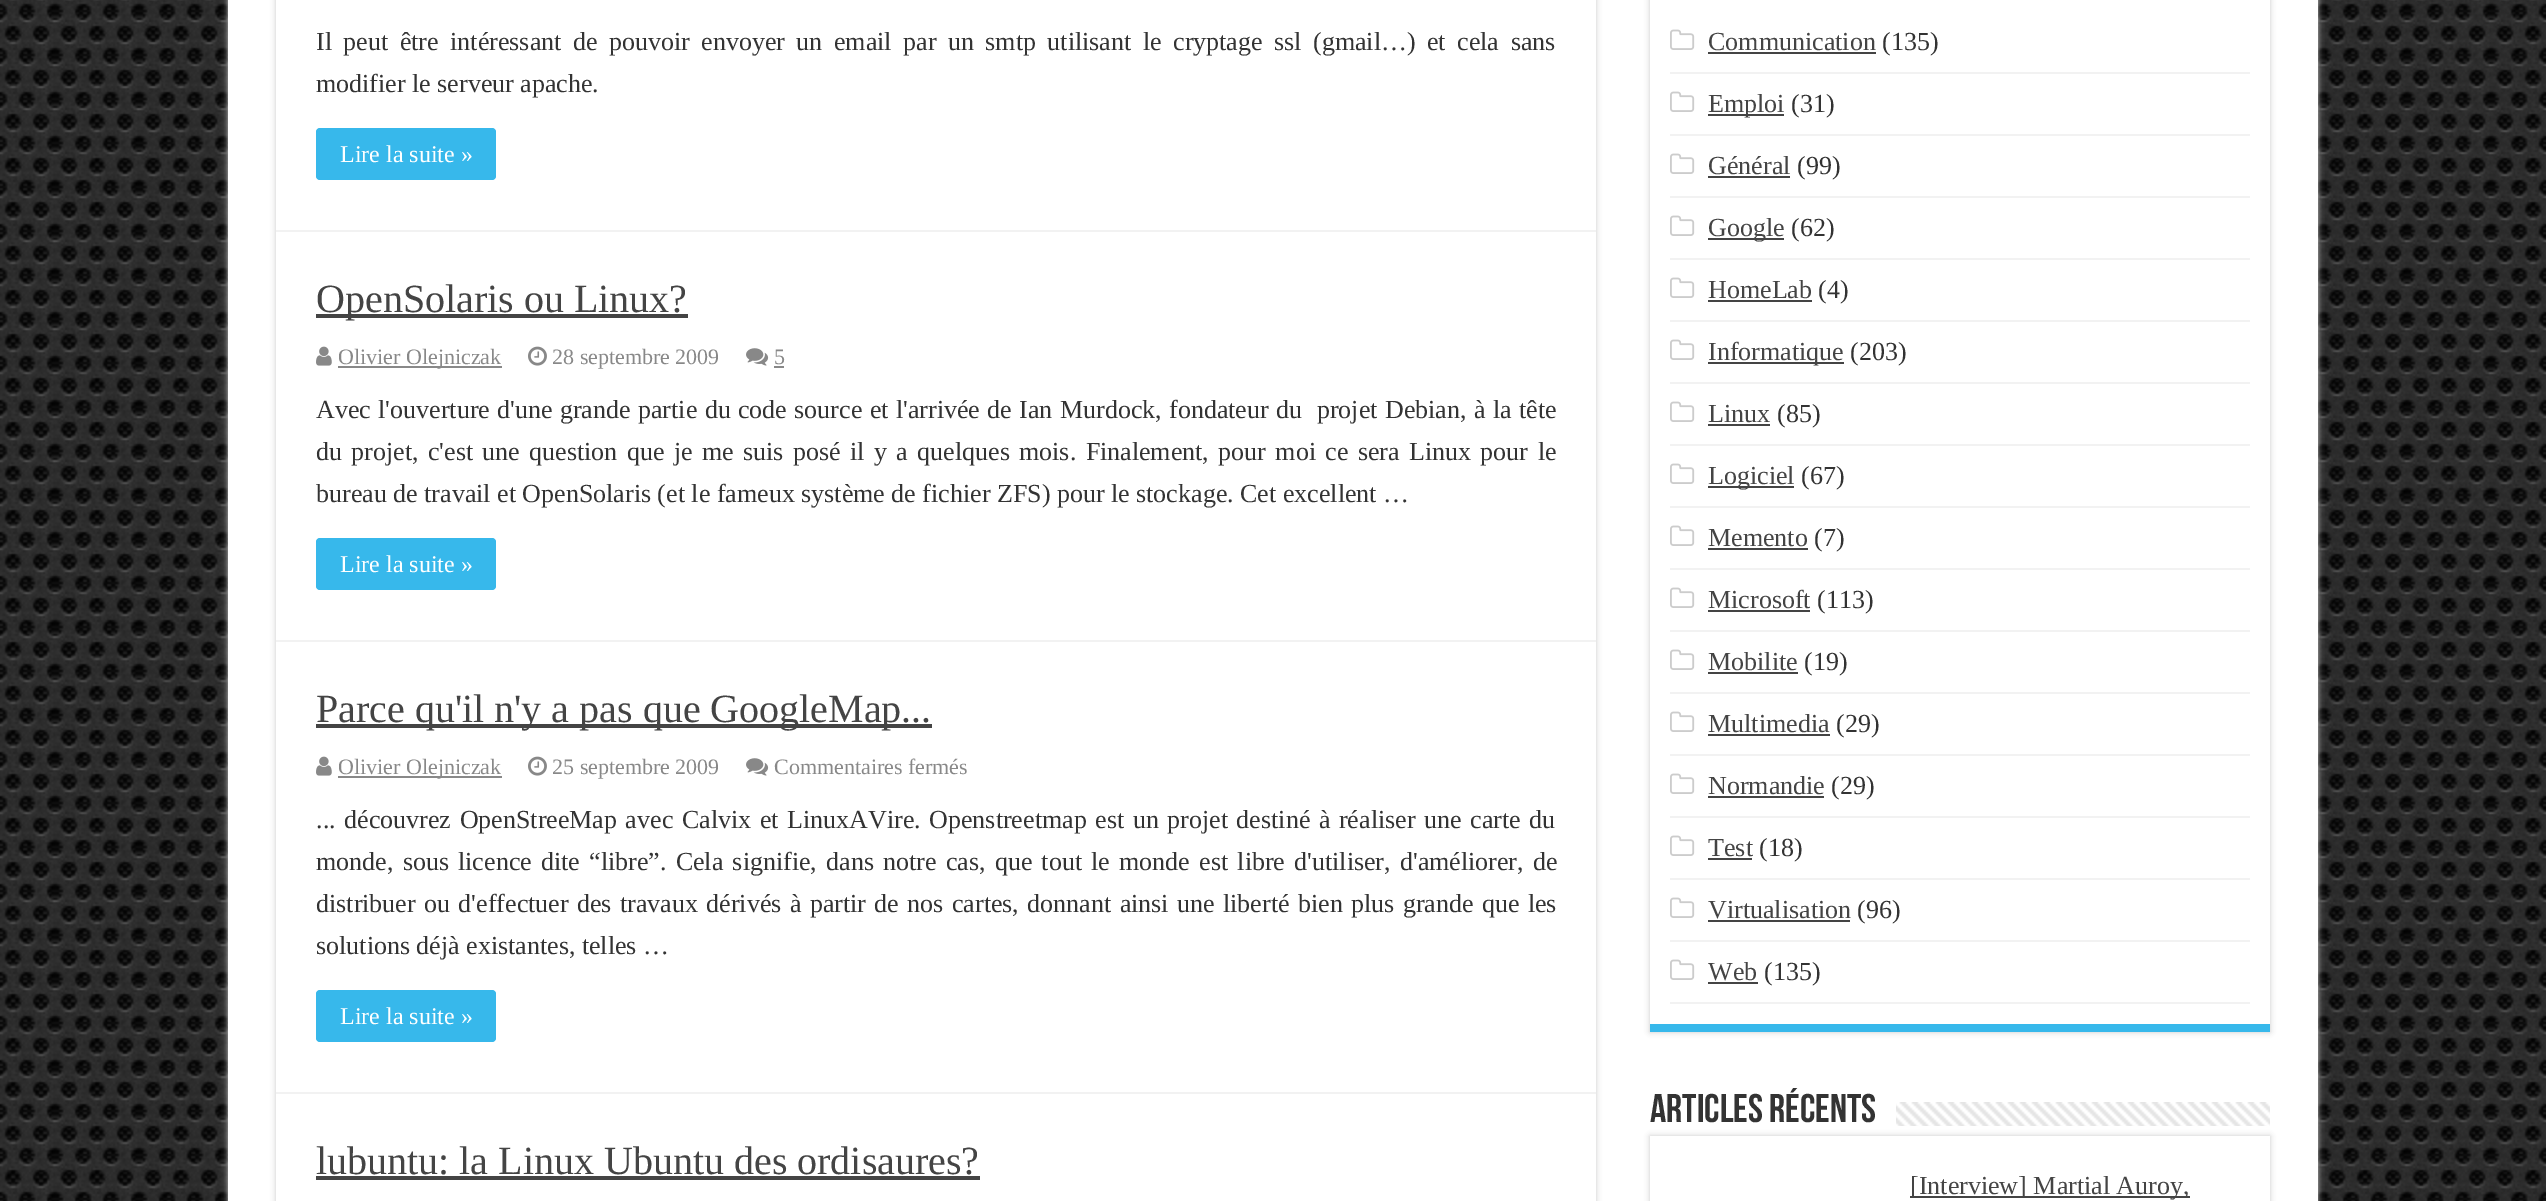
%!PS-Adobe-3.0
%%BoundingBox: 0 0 2546 1201
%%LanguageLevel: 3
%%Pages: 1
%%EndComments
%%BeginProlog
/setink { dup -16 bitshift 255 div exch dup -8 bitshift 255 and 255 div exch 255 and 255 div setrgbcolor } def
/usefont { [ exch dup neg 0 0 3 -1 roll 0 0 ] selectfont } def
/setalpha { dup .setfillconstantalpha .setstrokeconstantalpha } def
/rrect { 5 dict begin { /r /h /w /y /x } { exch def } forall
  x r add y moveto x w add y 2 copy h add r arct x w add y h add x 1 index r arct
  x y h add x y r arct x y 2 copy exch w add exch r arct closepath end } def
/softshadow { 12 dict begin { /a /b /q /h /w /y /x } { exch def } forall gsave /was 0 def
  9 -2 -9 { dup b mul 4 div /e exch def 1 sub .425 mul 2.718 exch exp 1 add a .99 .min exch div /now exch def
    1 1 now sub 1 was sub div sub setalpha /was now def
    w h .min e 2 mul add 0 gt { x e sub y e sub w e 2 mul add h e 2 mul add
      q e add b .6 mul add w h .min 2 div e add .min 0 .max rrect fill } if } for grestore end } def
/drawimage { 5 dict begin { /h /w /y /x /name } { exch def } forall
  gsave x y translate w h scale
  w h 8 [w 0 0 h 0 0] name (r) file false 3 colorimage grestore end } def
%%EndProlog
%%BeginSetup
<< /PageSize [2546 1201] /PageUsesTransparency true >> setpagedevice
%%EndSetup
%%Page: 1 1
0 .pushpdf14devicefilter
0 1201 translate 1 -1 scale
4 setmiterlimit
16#FFFFFF setink
0 0 2546 1201 rectfill
(img1.raw) 0 0 2546 1201 drawimage
16#CACACA setink
228 -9 2090 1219 0 3 1 softshadow
16#FFFFFF setink
228 0 2090 1201 rectfill
gsave
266 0 moveto 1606 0 lineto 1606 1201 lineto 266 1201 lineto closepath 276 -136 moveto 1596 -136 lineto 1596 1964 lineto 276 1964 lineto closepath eoclip newpath
16#CACACA setink
276 -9 1320 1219 0 3 1 softshadow
grestore
16#F2F2F2 setink
276 230 1320 2 rectfill
/LiberationSerif-Regular 26 usefont
16#333333 setink
316 50 moveto 5 0 32 (Il peut être intéressant de pouvoir envoyer un email par un smtp utilisant le cryptage ssl \(gmail…\) et cela sans) widthshow
316 92 moveto (modifier le serveur apache.) show
16#37B8EB setink
316 128 180 52 4 rrect fill
/LiberationSerif-Regular 24 usefont
16#FFFFFF setink
340 162 moveto (Lire la suite ») show
16#F2F2F2 setink
276 640 1320 2 rectfill
16#444444 setink
316 314 372 4 rectfill
/LiberationSerif-Regular 40 usefont
316 312 moveto (OpenSolaris ou Linux?) show
(img2.raw) 316 346 16 20 drawimage
16#888888 setink
338 366 164 2 rectfill
/LiberationSerif-Regular 22 usefont
338 364 moveto (Olivier Olejniczak) show
(img3.raw) 528 346 19 20 drawimage
552 364 moveto (28 septembre 2009) show
(img4.raw) 746 348 23 18 drawimage
774 364 moveto (5) show
774 366 10 2 rectfill
/LiberationSerif-Regular 26 usefont
16#333333 setink
316 418 moveto 0.9 0 32 (Avec l'ouverture d'une grande partie du code source et l'arrivée de Ian Murdock, fondateur du  projet Debian, à la tête) widthshow
316 460 moveto 2.9 0 32 (du projet, c'est une question que je me suis posé il y a quelques mois. Finalement, pour moi ce sera Linux pour le) widthshow
316 502 moveto (bureau de travail et OpenSolaris \(et le fameux système de fichier ZFS\) pour le stockage. Cet excellent …) show
16#37B8EB setink
316 538 180 52 4 rrect fill
/LiberationSerif-Regular 24 usefont
16#FFFFFF setink
340 572 moveto (Lire la suite ») show
16#F2F2F2 setink
276 1092 1320 2 rectfill
16#444444 setink
316 724 616 4 rectfill
/LiberationSerif-Regular 40 usefont
316 722 moveto (Parce qu'il n'y a pas que GoogleMap...) show
(img2.raw) 316 756 16 20 drawimage
16#888888 setink
338 776 164 2 rectfill
/LiberationSerif-Regular 22 usefont
338 774 moveto (Olivier Olejniczak) show
(img3.raw) 528 756 19 20 drawimage
552 774 moveto (25 septembre 2009) show
(img4.raw) 746 758 23 18 drawimage
774 774 moveto (Commentaires fermés) show
/LiberationSerif-Regular 26 usefont
16#333333 setink
316 828 moveto 2.1 0 32 (... découvrez OpenStreeMap avec Calvix et LinuxAVire. Openstreetmap est un projet destiné à réaliser une carte du) widthshow
316 870 moveto 2.75 0 32 (monde, sous licence dite “libre”. Cela signifie, dans notre cas, que tout le monde est libre d'utiliser, d'améliorer, de) widthshow
316 912 moveto 1.9 0 32 (distribuer ou d'effectuer des travaux dérivés à partir de nos cartes, donnant ainsi une liberté bien plus grande que les) widthshow
316 954 moveto (solutions déjà existantes, telles …) show
16#37B8EB setink
316 990 180 52 4 rrect fill
/LiberationSerif-Regular 24 usefont
16#FFFFFF setink
340 1024 moveto (Lire la suite ») show
/LiberationSerif-Regular 40 usefont
16#444444 setink
316 1174 moveto (lubuntu: la Linux Ubuntu des ordisaures?) show
316 1176 664 4 rectfill
gsave
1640 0 moveto 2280 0 lineto 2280 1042 lineto 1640 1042 lineto closepath 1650 -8 moveto 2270 -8 lineto 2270 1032 lineto 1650 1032 lineto closepath eoclip newpath
16#CACACA setink
1650 -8 620 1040 0 3 1 softshadow
grestore
16#37B8EB setink
1650 1024 620 8 rectfill
16#F2F2F2 setink
1670 72 580 2 rectfill
(img5.raw) 1670 29 25 21 drawimage
/LiberationSerif-Regular 26 usefont
16#444444 setink
1708 50 moveto (Communication) show
1708 52 168 2 rectfill
16#333333 setink
1882 50 moveto (\(135\)) show
16#F2F2F2 setink
1670 134 580 2 rectfill
(img5.raw) 1670 91 25 21 drawimage
16#444444 setink
1708 114 76 2 rectfill
1708 112 moveto (Emploi) show
16#333333 setink
1791 112 moveto (\(31\)) show
16#F2F2F2 setink
1670 196 580 2 rectfill
(img5.raw) 1670 153 25 21 drawimage
16#444444 setink
1708 174 moveto (Général) show
1708 176 82 2 rectfill
16#333333 setink
1797 174 moveto (\(99\)) show
16#F2F2F2 setink
1670 258 580 2 rectfill
(img5.raw) 1670 215 25 21 drawimage
16#444444 setink
1708 238 76 2 rectfill
1708 236 moveto (Google) show
16#333333 setink
1791 236 moveto (\(62\)) show
16#F2F2F2 setink
1670 320 580 2 rectfill
(img5.raw) 1670 277 25 21 drawimage
16#444444 setink
1708 298 moveto (HomeLab) show
1708 300 104 2 rectfill
16#333333 setink
1818 298 moveto (\(4\)) show
16#F2F2F2 setink
1670 382 580 2 rectfill
(img5.raw) 1670 339 25 21 drawimage
16#444444 setink
1708 362 136 2 rectfill
1708 360 moveto (Informatique) show
16#333333 setink
1850 360 moveto (\(203\)) show
16#F2F2F2 setink
1670 444 580 2 rectfill
(img5.raw) 1670 401 25 21 drawimage
16#444444 setink
1708 422 moveto (Linux) show
1708 424 62 2 rectfill
16#333333 setink
1777 422 moveto (\(85\)) show
16#F2F2F2 setink
1670 506 580 2 rectfill
(img5.raw) 1670 463 25 21 drawimage
16#444444 setink
1708 486 86 2 rectfill
1708 484 moveto (Logiciel) show
16#333333 setink
1801 484 moveto (\(67\)) show
16#F2F2F2 setink
1670 568 580 2 rectfill
(img5.raw) 1670 525 25 21 drawimage
16#444444 setink
1708 546 moveto (Memento) show
1708 548 100 2 rectfill
16#333333 setink
1814 546 moveto (\(7\)) show
16#F2F2F2 setink
1670 630 580 2 rectfill
(img5.raw) 1670 587 25 21 drawimage
16#444444 setink
1708 608 moveto (Microsoft) show
1708 610 102 2 rectfill
16#333333 setink
1817 608 moveto (\(113\)) show
16#F2F2F2 setink
1670 692 580 2 rectfill
(img5.raw) 1670 649 25 21 drawimage
16#444444 setink
1708 670 moveto (Mobilite) show
1708 672 90 2 rectfill
16#333333 setink
1804 670 moveto (\(19\)) show
16#F2F2F2 setink
1670 754 580 2 rectfill
(img5.raw) 1670 711 25 21 drawimage
16#444444 setink
1708 732 moveto (Multimedia) show
1708 734 122 2 rectfill
16#333333 setink
1836 732 moveto (\(29\)) show
16#F2F2F2 setink
1670 816 580 2 rectfill
(img5.raw) 1670 773 25 21 drawimage
16#444444 setink
1708 794 moveto (Normandie) show
1708 796 116 2 rectfill
16#333333 setink
1831 794 moveto (\(29\)) show
16#F2F2F2 setink
1670 878 580 2 rectfill
(img5.raw) 1670 835 25 21 drawimage
16#444444 setink
1708 856 moveto (Test) show
1708 858 44 2 rectfill
16#333333 setink
1759 856 moveto (\(18\)) show
16#F2F2F2 setink
1670 940 580 2 rectfill
(img5.raw) 1670 897 25 21 drawimage
16#444444 setink
1708 918 moveto (Virtualisation) show
1708 920 142 2 rectfill
16#333333 setink
1857 918 moveto (\(96\)) show
16#F2F2F2 setink
1670 1002 580 2 rectfill
(img5.raw) 1670 959 25 21 drawimage
16#444444 setink
1708 980 moveto (Web) show
1708 982 50 2 rectfill
16#333333 setink
1764 980 moveto (\(135\)) show
/BebasNeue-Bold 40 usefont
1650 1122 moveto (Articles récents) show
(img6.raw) 1896 1102 374 24 drawimage
gsave
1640 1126 moveto 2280 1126 lineto 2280 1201 lineto 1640 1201 lineto closepath 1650 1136 moveto 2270 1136 lineto 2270 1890 lineto 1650 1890 lineto closepath eoclip newpath
16#CACACA setink
1650 1136 620 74 0 3 1 softshadow
grestore
16#444444 setink
1910 1196 280 2 rectfill
/LiberationSerif-Regular 26 usefont
1910 1194 moveto ([Interview] Martial Auroy,) show
.poppdf14devicefilter showpage
%%EOF
